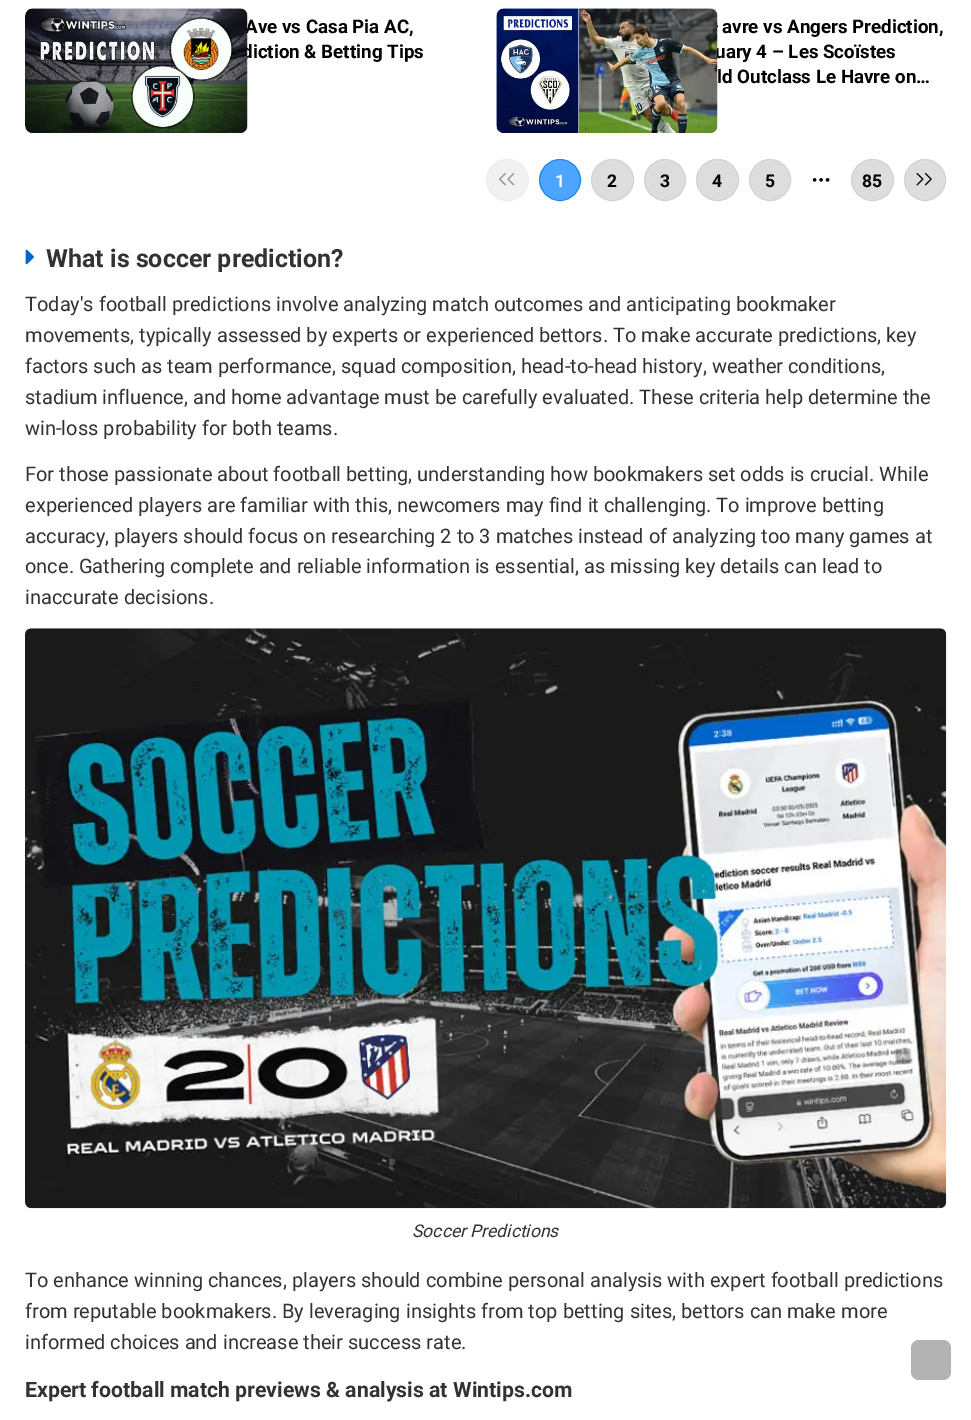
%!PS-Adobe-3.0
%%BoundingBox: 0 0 971 1420
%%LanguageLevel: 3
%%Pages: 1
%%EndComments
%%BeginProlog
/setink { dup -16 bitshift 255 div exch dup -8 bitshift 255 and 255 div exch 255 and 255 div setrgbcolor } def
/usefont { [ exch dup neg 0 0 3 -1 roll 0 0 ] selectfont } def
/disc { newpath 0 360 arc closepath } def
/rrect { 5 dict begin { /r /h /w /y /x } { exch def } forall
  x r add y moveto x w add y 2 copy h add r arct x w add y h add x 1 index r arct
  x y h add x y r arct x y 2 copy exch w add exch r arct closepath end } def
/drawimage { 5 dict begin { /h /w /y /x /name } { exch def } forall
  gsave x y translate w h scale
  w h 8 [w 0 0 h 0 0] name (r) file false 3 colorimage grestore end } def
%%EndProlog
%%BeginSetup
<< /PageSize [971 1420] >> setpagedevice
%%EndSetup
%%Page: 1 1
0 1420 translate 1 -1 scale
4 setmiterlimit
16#FFFFFF setink
0 0 971 1420 rectfill
/Roboto-Bold 18.75 usefont
16#000000 setink
245 33 moveto (Ave vs Casa Pia AC,) show
242 58 moveto (diction & Betting Tips) show
(img1.raw) 25 8 223 125 drawimage
715 58 moveto (uary 4 – Les Scoïstes) show
(img2.raw) 496 8 222 125 drawimage
722 33 moveto (avre vs Angers Prediction,) show
717 83 moveto (ld Outclass Le Havre on…) show
16#F1F1F1 setink
486.5 159.5 42 41 20.5 rrect gsave fill grestore
16#EBEEF0 setink
stroke
(img3.raw) 499 173 16 13 drawimage
16#4CA5FF setink
560 180 20.5 disc gsave fill grestore
16#228BE6 setink
stroke
/Roboto-Bold 17.5 usefont
16#FFFFFF setink
555 187 moveto (1) show
16#DDDDDD setink
591.5 159.5 42 41 20.5 rrect gsave fill grestore
16#CED4DA setink
stroke
16#000000 setink
607 187 moveto (2) show
16#DDDDDD setink
665 180 20.5 disc gsave fill grestore
16#CED4DA setink
stroke
16#000000 setink
660 187 moveto (3) show
16#DDDDDD setink
696.5 159.5 42 41 20.5 rrect gsave fill grestore
16#CED4DA setink
stroke
16#000000 setink
712 187 moveto (4) show
16#DDDDDD setink
770 180 20.5 disc gsave fill grestore
16#CED4DA setink
stroke
16#000000 setink
765 187 moveto (5) show
(img4.raw) 812 178 18 4 drawimage
16#DDDDDD setink
851.5 159.5 42 41 20.5 rrect gsave fill grestore
16#CED4DA setink
stroke
16#000000 setink
862 187 moveto (85) show
16#DDDDDD setink
925 180 20.5 disc gsave fill grestore
16#CED4DA setink
stroke
(img5.raw) 916 173 16 13 drawimage
(img6.raw) 25 249 9 16 drawimage
/Roboto-Bold 25 usefont
16#323232 setink
46 267 moveto (What is soccer prediction?) show
/Roboto-Regular 20 usefont
[
    [(Today's football predictions involve analyzing match outcomes and anticipating bookmaker) 25 311]
    [(movements, typically assessed by experts or experienced bettors. To make accurate predictions, key) 25 342]
    [(factors such as team performance, squad composition, head-to-head history, weather conditions,) 25 373]
    [(stadium influence, and home advantage must be carefully evaluated. These criteria help determine the) 25 404]
    [(win-loss probability for both teams.) 25 435]
    [(For those passionate about football betting, understanding how bookmakers set odds is crucial. While) 25 481]
    [(experienced players are familiar with this, newcomers may find it challenging. To improve betting) 25 512]
    [(accuracy, players should focus on researching 2 to 3 matches instead of analyzing too many games at) 25 543]
    [(once. Gathering complete and reliable information is essential, as missing key details can lead to) 25 573]
    [(inaccurate decisions.) 25 604]
] { aload pop moveto show } forall
(img7.raw) 25 628 922 581 drawimage
/Roboto-Italic 17.5 usefont
412 1237 moveto (Soccer Predictions) show
/Roboto-Regular 20 usefont
[
    [(To enhance winning chances, players should combine personal analysis with expert football predictions) 25 1287]
    [(from reputable bookmakers. By leveraging insights from top betting sites, bettors can make more) 25 1318]
    [(informed choices and increase their success rate.) 25 1349]
] { aload pop moveto show } forall
/Roboto-Bold 21.25 usefont
25 1397 moveto (Expert football match previews & analysis at Wintips.com) show
16#B3B3B3 setink
911 1340 40 40 8 rrect fill
showpage
%%EOF
